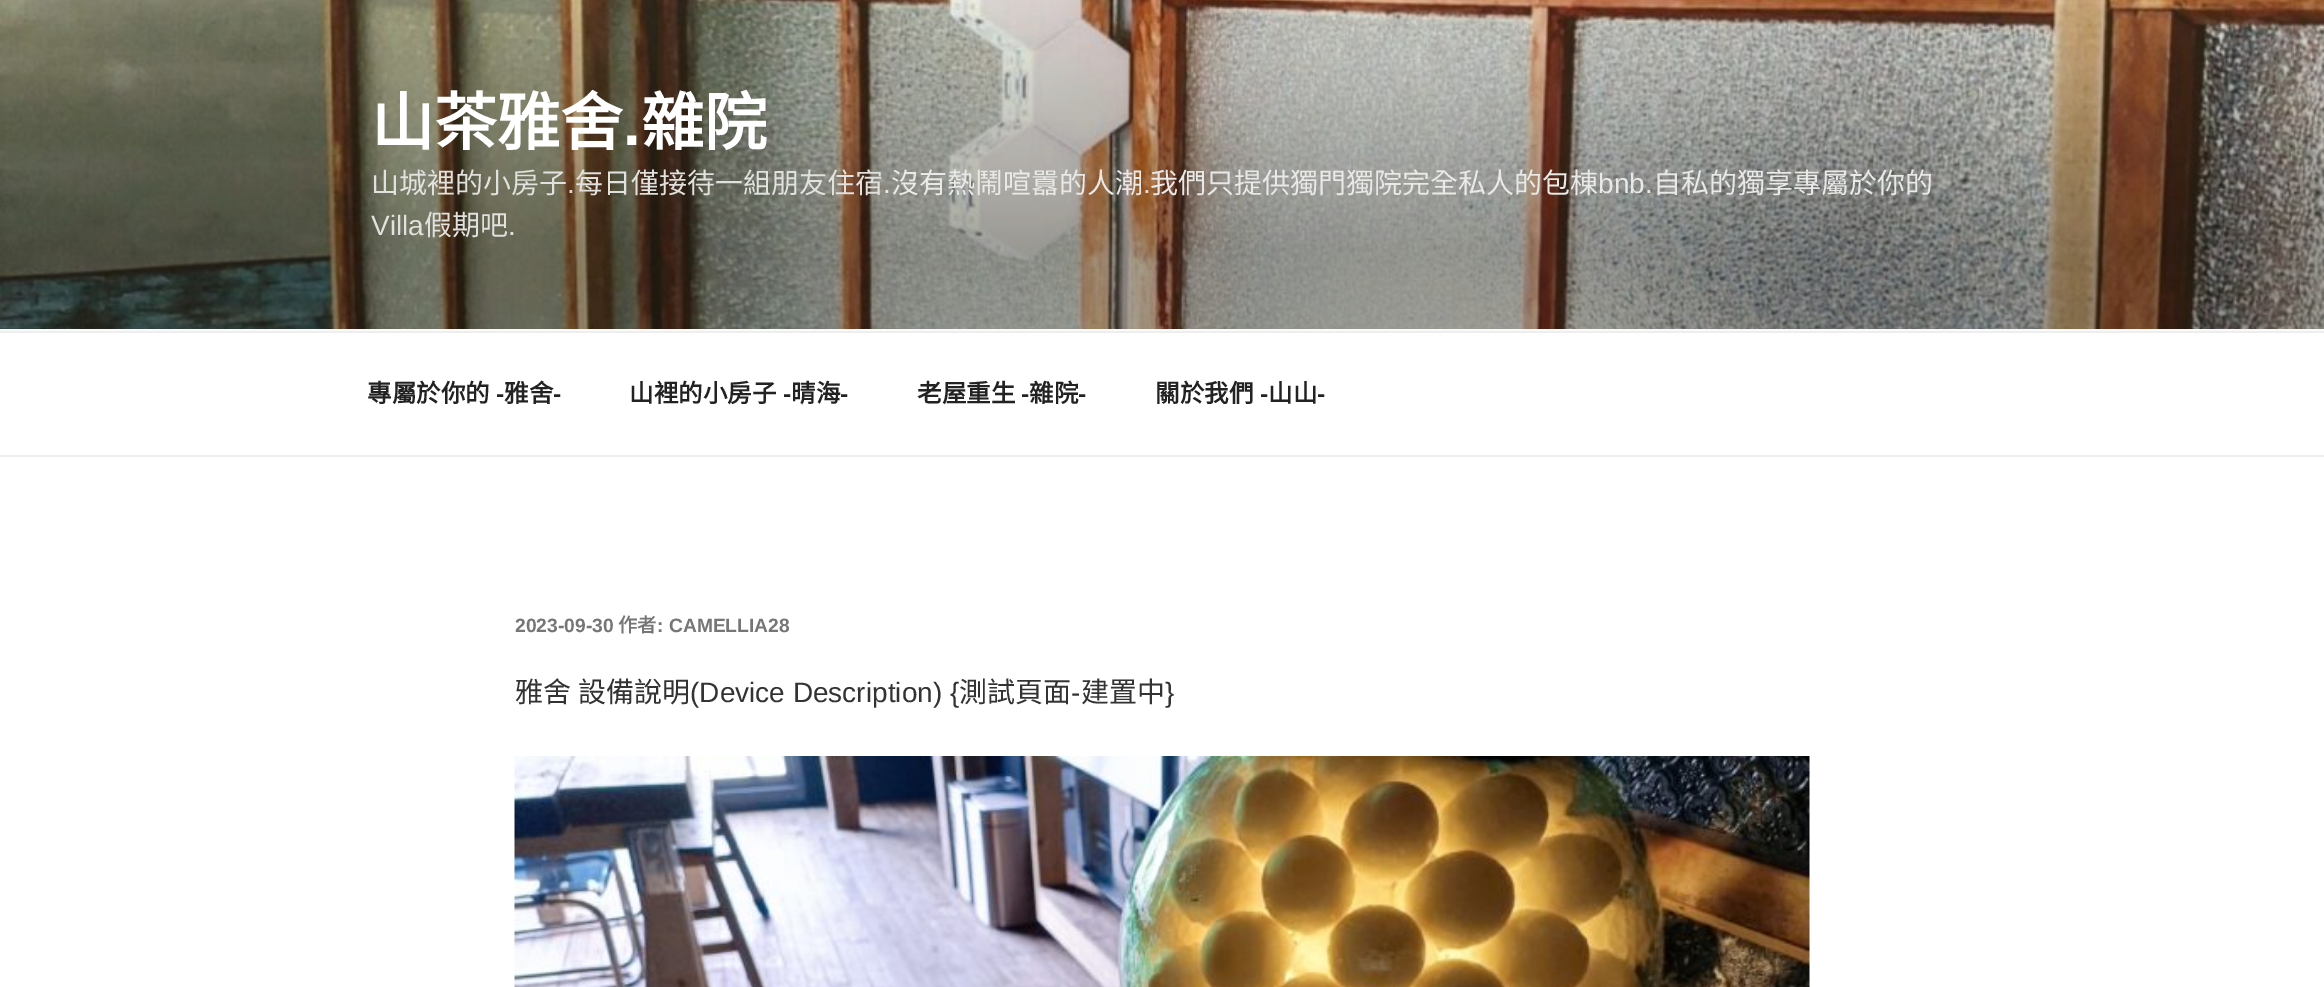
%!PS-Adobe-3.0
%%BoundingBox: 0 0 2324 987
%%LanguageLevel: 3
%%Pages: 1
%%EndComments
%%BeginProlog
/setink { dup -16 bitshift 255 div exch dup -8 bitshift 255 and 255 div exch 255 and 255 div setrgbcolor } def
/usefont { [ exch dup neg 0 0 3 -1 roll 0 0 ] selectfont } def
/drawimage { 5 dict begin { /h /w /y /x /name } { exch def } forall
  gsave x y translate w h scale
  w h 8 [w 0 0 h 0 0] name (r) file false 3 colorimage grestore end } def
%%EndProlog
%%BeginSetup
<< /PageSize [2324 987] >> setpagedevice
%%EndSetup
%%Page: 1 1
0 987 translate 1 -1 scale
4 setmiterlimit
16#FFFFFF setink
0 0 2324 987 rectfill
16#FAFAFA setink
0 329 2324 2 rectfill
(img1.raw) 0 0 2324 329 drawimage
/NotoSansCJKTC-Bold 63 usefont
16#FFFFFF setink
371 145 moveto (山茶雅舍) show
/LiberationSans-Bold 63 usefont
623 145 moveto (.) show
/NotoSansCJKTC-Bold 63 usefont
641 145 moveto (雜院) show
/NotoSansCJKTC-Regular 28 usefont
16#E1E1DD setink
371 193 moveto (山城裡的小房子) show
/LiberationSans-Regular 28 usefont
16#DED7D1 setink
567 193 moveto (.) show
/NotoSansCJKTC-Regular 28 usefont
16#E1E1DD setink
575 193 moveto (每日僅接待一組朋友住宿) show
/LiberationSans-Regular 28 usefont
16#E9E9E7 setink
883 193 moveto (.) show
/NotoSansCJKTC-Regular 28 usefont
891 193 moveto (沒有熱鬧喧囂的人潮) show
/LiberationSans-Regular 28 usefont
16#EADDD3 setink
1143 193 moveto (.) show
/NotoSansCJKTC-Regular 28 usefont
16#E9E9E7 setink
1150 193 moveto (我們只提供獨門獨院完全私人的包棟) show
/LiberationSans-Regular 28 usefont
1598 193 moveto (bnb.) show
/NotoSansCJKTC-Regular 28 usefont
1653 193 moveto (自私的獨享專屬於你的) show
/LiberationSans-Regular 28 usefont
16#E1E1DD setink
371 235 moveto (Villa) show
/NotoSansCJKTC-Regular 28 usefont
424 235 moveto (假期吧) show
/LiberationSans-Regular 28 usefont
508 235 moveto (.) show
16#EEEEEE setink
0 331 2324 2 rectfill
0 455 2324 2 rectfill
/NotoSansCJKTC-Bold 24.5 usefont
16#222222 setink
367 402 moveto (專屬於你的) show
/LiberationSans-Bold 24.5 usefont
496 402 moveto (-) show
/NotoSansCJKTC-Bold 24.5 usefont
504 402 moveto (雅舍) show
/LiberationSans-Bold 24.5 usefont
553 402 moveto (-) show
/NotoSansCJKTC-Bold 24.5 usefont
629 402 moveto (山裡的小房子) show
/LiberationSans-Bold 24.5 usefont
783 402 moveto (-) show
/NotoSansCJKTC-Bold 24.5 usefont
791 402 moveto (晴海) show
/LiberationSans-Bold 24.5 usefont
840 402 moveto (-) show
/NotoSansCJKTC-Bold 24.5 usefont
917 402 moveto (老屋重生) show
/LiberationSans-Bold 24.5 usefont
1021 402 moveto (-) show
/NotoSansCJKTC-Bold 24.5 usefont
1029 402 moveto (雜院) show
/LiberationSans-Bold 24.5 usefont
1078 402 moveto (-) show
/NotoSansCJKTC-Bold 24.5 usefont
1155 402 moveto (關於我們) show
/LiberationSans-Bold 24.5 usefont
1260 402 moveto (-) show
/NotoSansCJKTC-Bold 24.5 usefont
1268 402 moveto (山山) show
/LiberationSans-Bold 24.5 usefont
1317 402 moveto (-) show
/LiberationSans-Bold 19.25 usefont
16#767676 setink
515 632 moveto (2023-09-30) show
/NotoSansCJKTC-Bold 19.25 usefont
618 632 moveto (作者) show
/LiberationSans-Bold 19.25 usefont
657 632 moveto (: CAMELLIA28) show
/NotoSansCJKTC-Regular 28 usefont
16#333333 setink
515 702 moveto (雅舍) show
578 702 moveto (設備說明) show
/LiberationSans-Regular 28 usefont
690 702 moveto (\(Device Description\) {) show
/NotoSansCJKTC-Regular 28 usefont
959 702 moveto (測試頁面) show
/LiberationSans-Regular 28 usefont
1071 702 moveto (-) show
/NotoSansCJKTC-Regular 28 usefont
1081 702 moveto (建置中) show
/LiberationSans-Regular 28 usefont
1165 702 moveto (}) show
(img2.raw) 514 756 1296 231 drawimage
showpage
%%EOF
